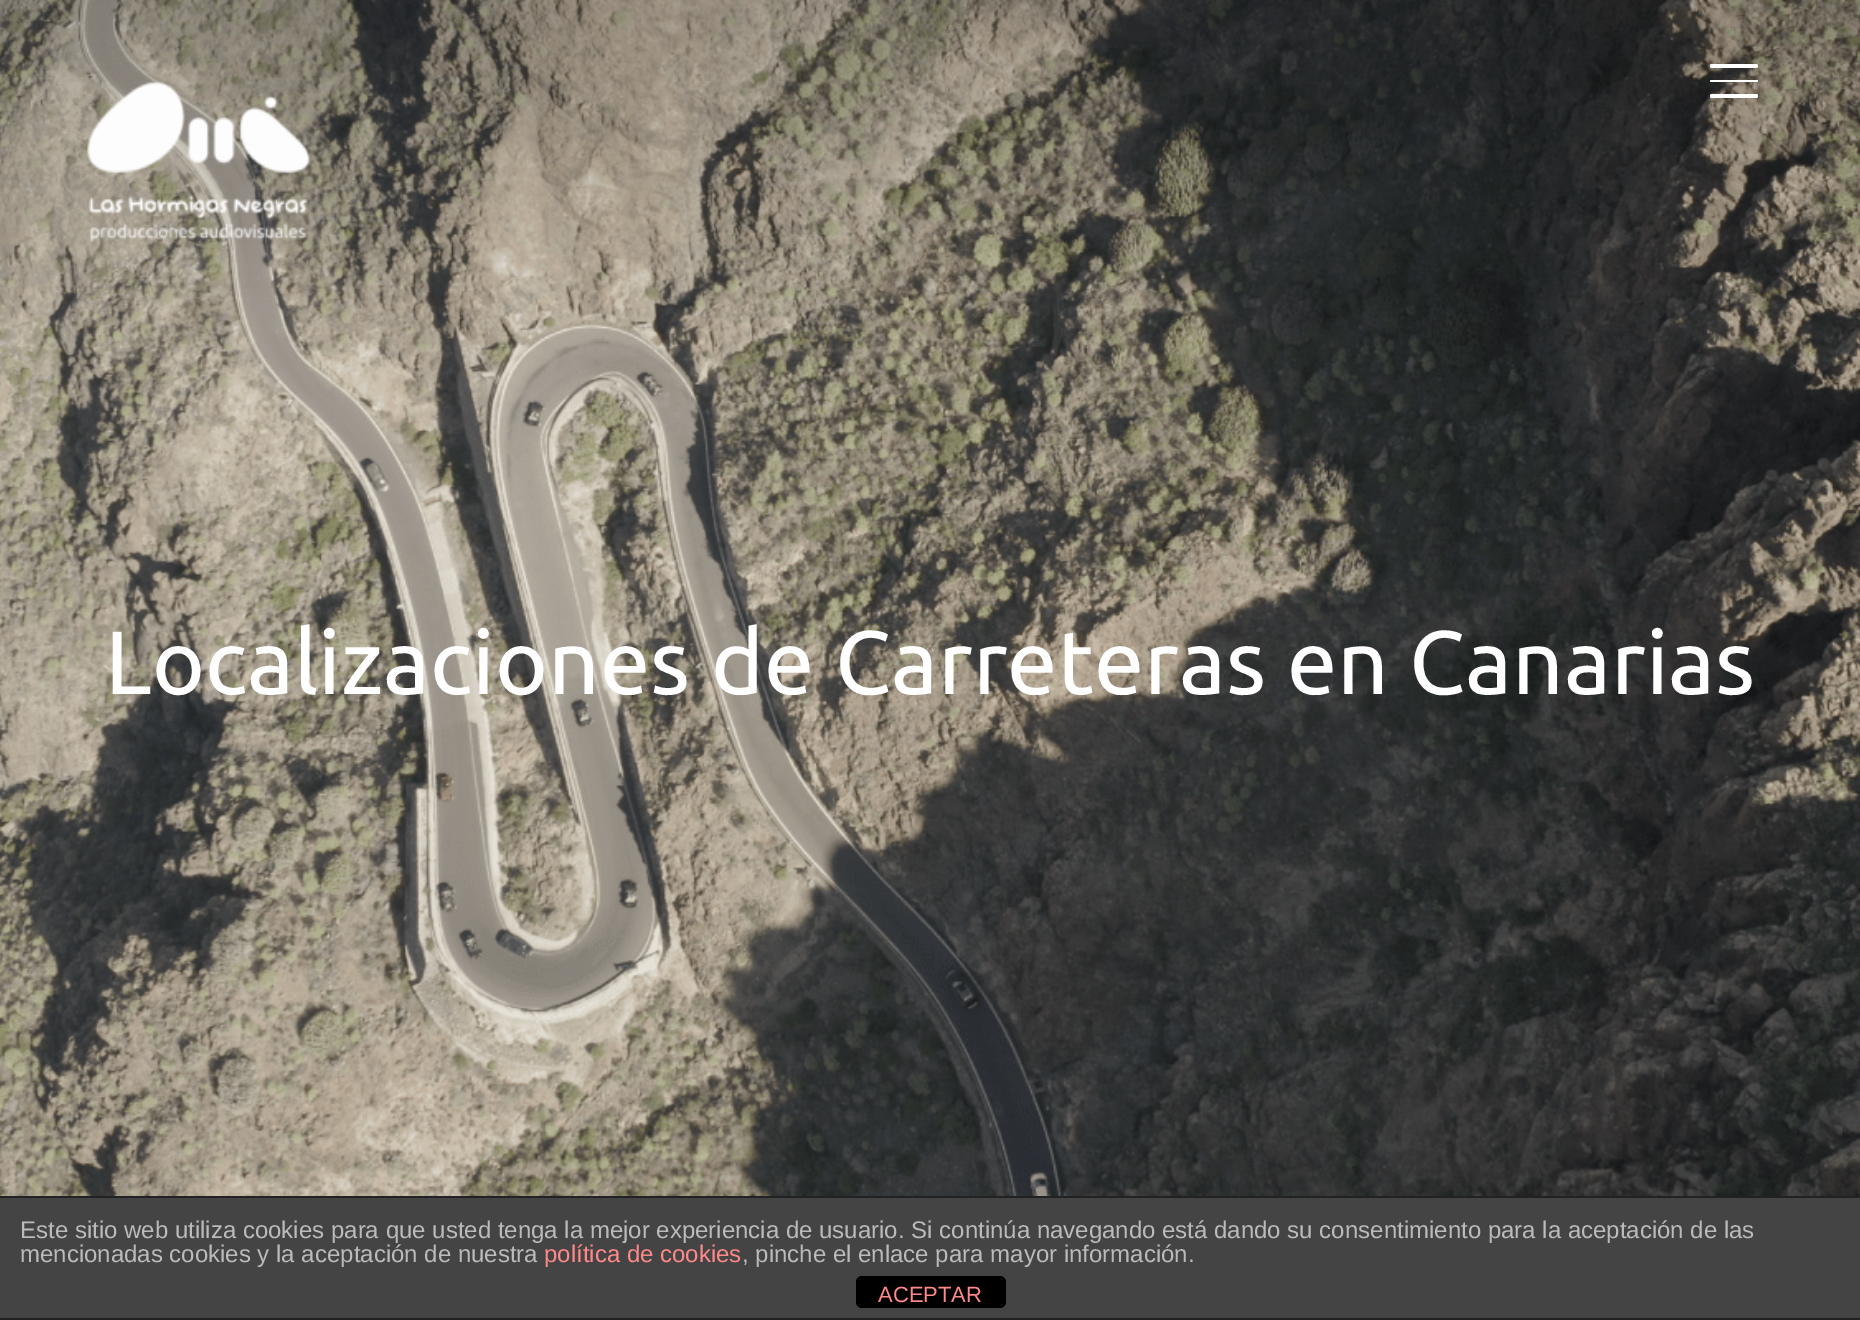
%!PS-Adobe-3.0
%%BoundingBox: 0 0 1860 1320
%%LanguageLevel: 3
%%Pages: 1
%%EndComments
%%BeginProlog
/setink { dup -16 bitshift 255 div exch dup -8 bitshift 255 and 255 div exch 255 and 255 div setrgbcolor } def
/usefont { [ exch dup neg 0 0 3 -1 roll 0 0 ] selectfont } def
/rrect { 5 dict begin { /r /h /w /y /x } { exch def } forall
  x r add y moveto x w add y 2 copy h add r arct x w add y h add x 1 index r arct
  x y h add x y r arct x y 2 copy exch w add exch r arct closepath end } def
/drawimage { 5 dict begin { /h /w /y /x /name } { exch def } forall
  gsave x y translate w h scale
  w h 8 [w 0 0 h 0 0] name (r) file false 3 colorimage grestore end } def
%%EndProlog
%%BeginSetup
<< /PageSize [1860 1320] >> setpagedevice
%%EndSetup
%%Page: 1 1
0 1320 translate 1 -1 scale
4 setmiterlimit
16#FFFFFF setink
0 0 1860 1320 rectfill
(img2.raw) 0 0 1860 1196 drawimage
(img1.raw) 87 81 224 162 drawimage
1710 64 48 4 2 rrect fill
1710 80 48 2 1 rrect fill
1710 94 48 4 2 rrect fill
/Ubuntu-Regular 90 usefont
105 694 moveto (Localizaciones de Carreteras en Canarias) show
[
    [0 1198 1860 120 16#444444]
    [0 1196 1860 2 16#222222]
    [0 1318 1860 2 16#222222]
] { aload pop setink rectfill } forall
/LiberationSans-Regular 24 usefont
16#BBBBBB setink
20 1238 moveto (Este sitio web utiliza cookies para que usted tenga la mejor experiencia de usuario. Si continúa navegando está dando su consentimiento para la aceptación de las) show
20 1262 moveto (mencionadas cookies y la aceptación de nuestra) show
16#FF8888 setink
544 1262 moveto (política de cookies) show
16#BBBBBB setink
742 1262 moveto (, pinche el enlace para mayor información.) show
16#000000 setink
856 1276 150 32 6 rrect fill
/LiberationSans-Regular 22 usefont
16#FF8888 setink
878 1302 moveto (ACEPTAR) show
showpage
%%EOF
